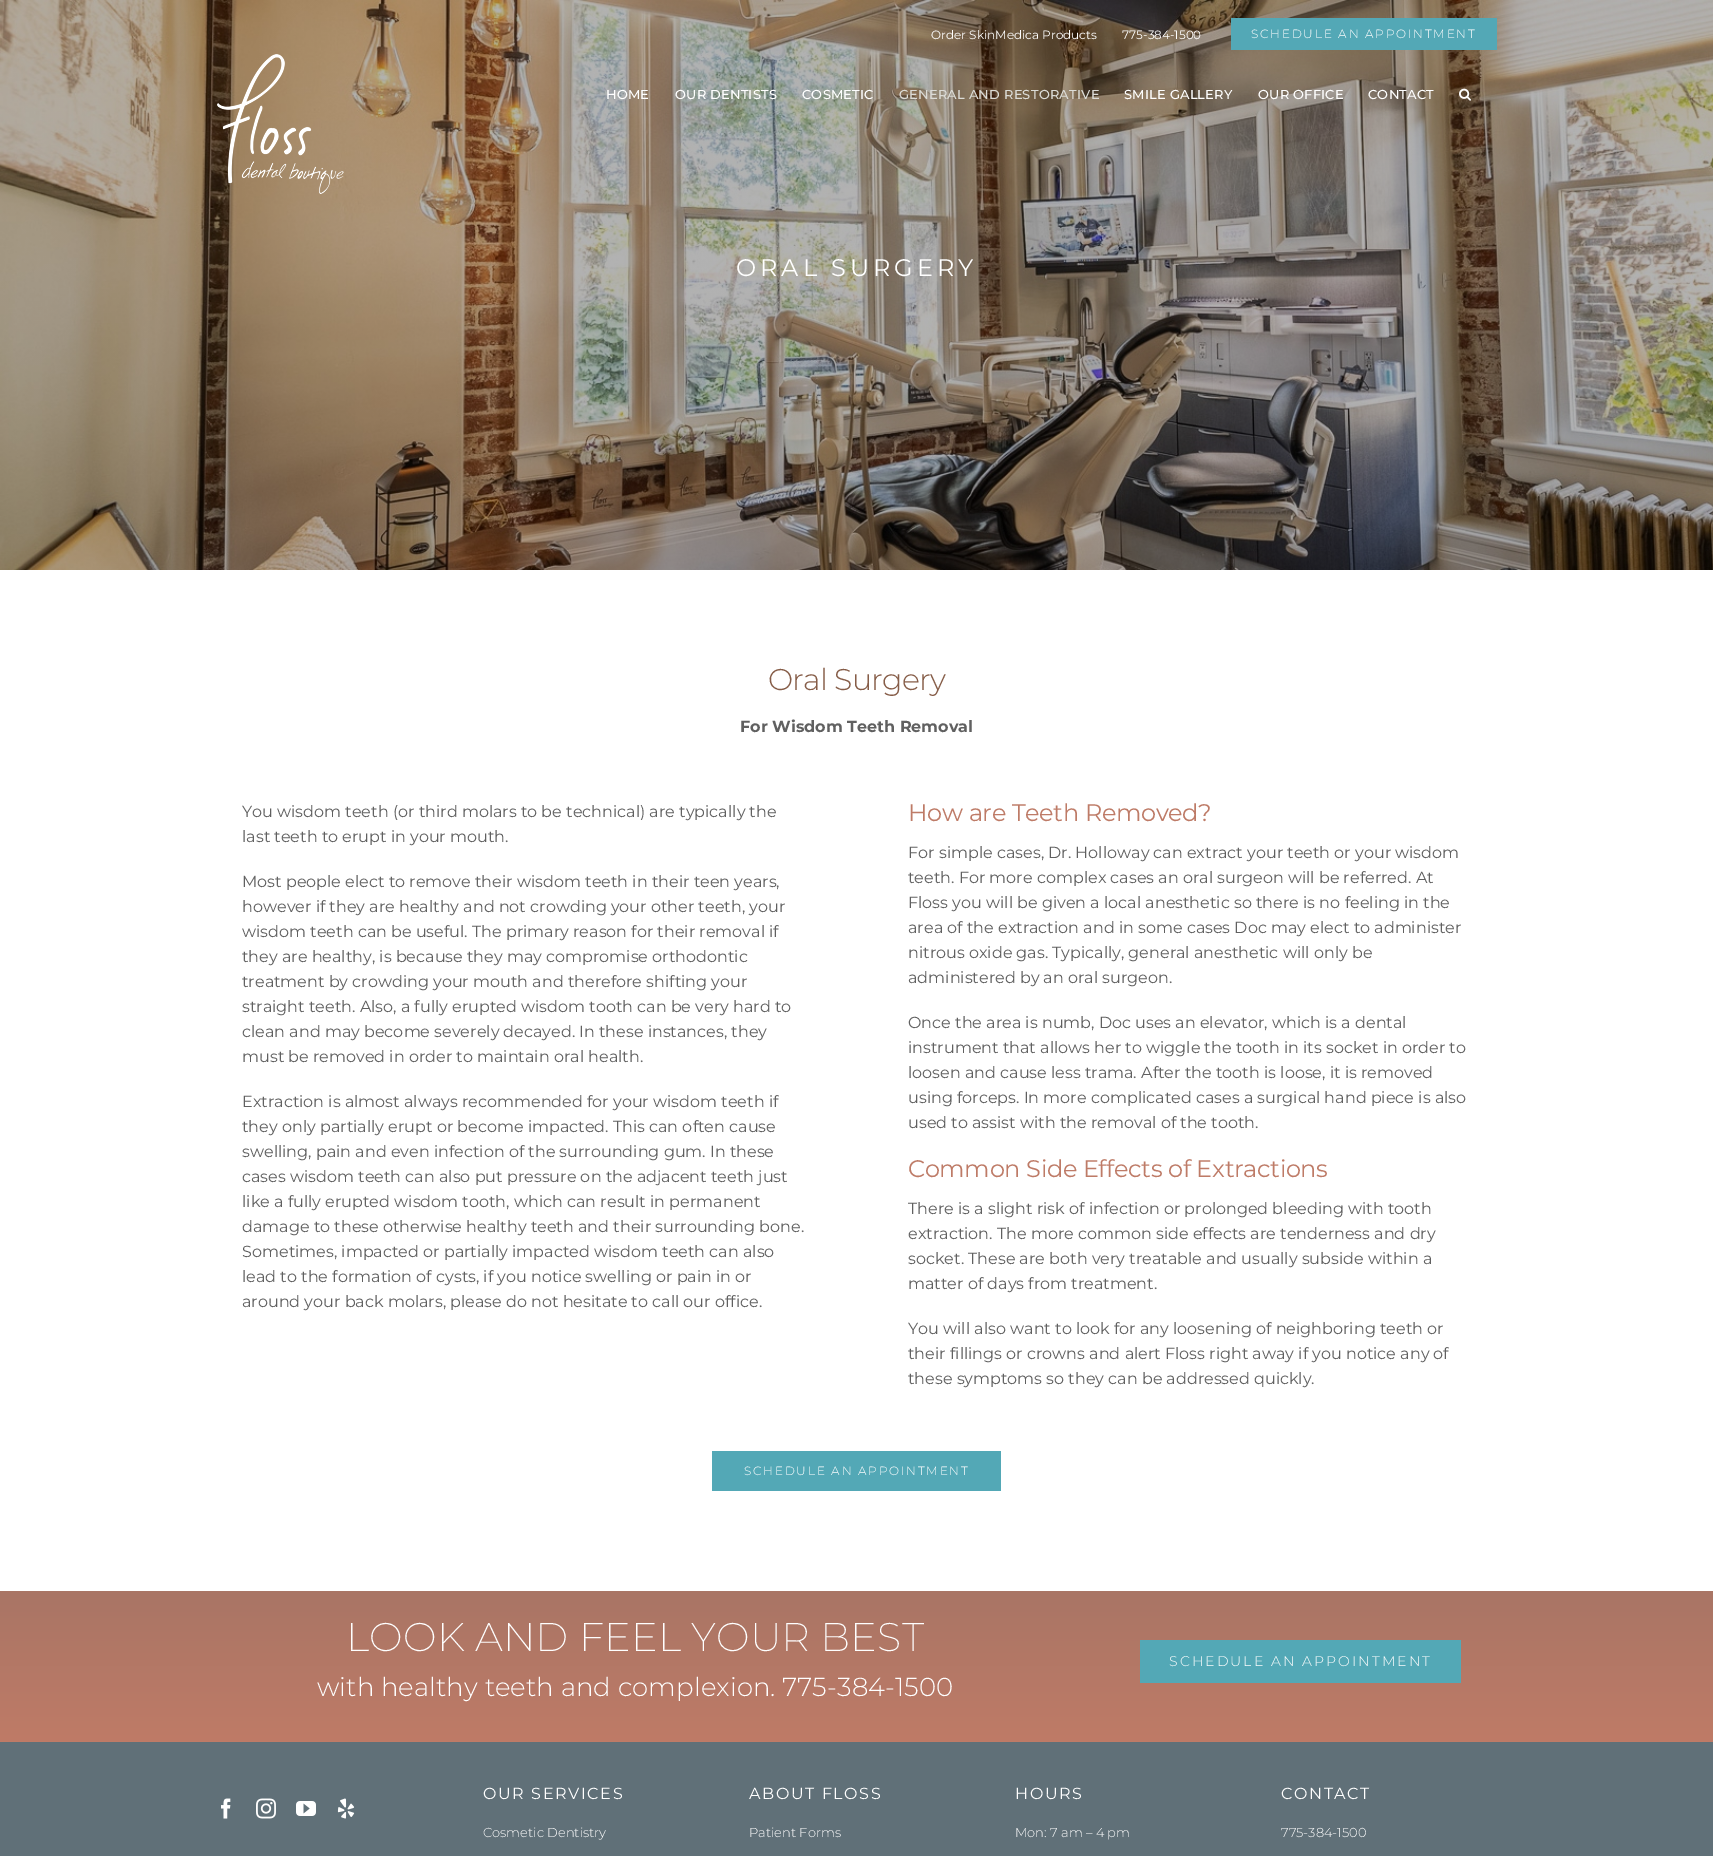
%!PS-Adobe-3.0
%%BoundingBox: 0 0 1713 1856
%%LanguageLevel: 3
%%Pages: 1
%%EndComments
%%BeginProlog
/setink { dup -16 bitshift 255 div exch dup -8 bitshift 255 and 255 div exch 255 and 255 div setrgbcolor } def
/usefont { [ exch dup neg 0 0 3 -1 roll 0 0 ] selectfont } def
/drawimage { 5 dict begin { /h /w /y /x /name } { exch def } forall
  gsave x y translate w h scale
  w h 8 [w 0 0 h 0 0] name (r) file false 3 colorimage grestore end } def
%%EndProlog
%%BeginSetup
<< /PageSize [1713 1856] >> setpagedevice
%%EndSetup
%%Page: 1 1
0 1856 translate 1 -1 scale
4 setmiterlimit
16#FFFFFF setink
0 0 1713 1856 rectfill
(img3.raw) 0 0 1713 570 drawimage
/Montserrat-Regular 12 usefont
931 39 moveto (Order SkinMedica Products) show
1122 39 moveto (775-384-1500) show
16#53A8B6 setink
1231 18 266 32 rectfill
/Montserrat-Light 12 usefont
16#FFFFFF setink
1251 38 moveto 1.8 0 (SCHEDULE AN APPOINTMENT) ashow
(img1.raw) 217 54 127 140 drawimage
/Montserrat-Medium 13 usefont
606 99 moveto 0.2 0 (HOME) ashow
675 99 moveto 0.2 0 (OUR DENTISTS) ashow
802 99 moveto 0.2 0 (COSMETIC) ashow
16#DCDCD7 setink
899 99 moveto 0.2 0 (GENERAL AND RESTORATIVE) ashow
16#FFFFFF setink
1124 99 moveto 0.2 0 (SMILE GALLERY) ashow
1258 99 moveto 0.2 0 (OUR OFFICE) ashow
1368 99 moveto 0.2 0 (CONTACT) ashow
(img2.raw) 1459 88 12 13 drawimage
/Montserrat-Regular 24 usefont
736 276 moveto 4 0 (ORAL SURGERY) ashow
/Montserrat-Light 30 usefont
16#865D48 setink
768 690 moveto -0.75 0 (Oral Surgery) ashow
/Montserrat-Bold 16 usefont
16#606060 setink
740 732 moveto (For Wisdom Teeth Removal) show
/Montserrat-Regular 16 usefont
[
    [(You wisdom teeth \(or third molars to be technical\) are typically the) 242 817]
    [(last teeth to erupt in your mouth.) 242 842]
    [(Most people elect to remove their wisdom teeth in their teen years,) 242 887]
    [(however if they are healthy and not crowding your other teeth, your) 242 912]
    [(wisdom teeth can be useful. The primary reason for their removal if) 242 937]
    [(they are healthy, is because they may compromise orthodontic) 242 962]
    [(treatment by crowding your mouth and therefore shifting your) 242 987]
    [(straight teeth. Also, a fully erupted wisdom tooth can be very hard to) 242 1012]
    [(clean and may become severely decayed. In these instances, they) 242 1037]
    [(must be removed in order to maintain oral health.) 242 1062]
    [(Extraction is almost always recommended for your wisdom teeth if) 242 1107]
    [(they only partially erupt or become impacted. This can often cause) 242 1132]
    [(swelling, pain and even infection of the surrounding gum. In these) 242 1157]
    [(cases wisdom teeth can also put pressure on the adjacent teeth just) 242 1182]
    [(like a fully erupted wisdom tooth, which can result in permanent) 242 1207]
    [(damage to these otherwise healthy teeth and their surrounding bone.) 242 1232]
    [(Sometimes, impacted or partially impacted wisdom teeth can also) 242 1257]
    [(lead to the formation of cysts, if you notice swelling or pain in or) 242 1282]
    [(around your back molars, please do not hesitate to call our office.) 242 1307]
] { aload pop moveto show } forall
/Montserrat-Regular 24 usefont
16#BE7B67 setink
908 821 moveto -0.35 0 (How are Teeth Removed?) ashow
/Montserrat-Regular 16 usefont
16#606060 setink
[
    [(For simple cases, Dr. Holloway can extract your teeth or your wisdom) 908 858]
    [(teeth. For more complex cases an oral surgeon will be referred. At) 908 883]
    [(Floss you will be given a local anesthetic so there is no feeling in the) 908 908]
    [(area of the extraction and in some cases Doc may elect to administer) 908 933]
    [(nitrous oxide gas. Typically, general anesthetic will only be) 908 958]
    [(administered by an oral surgeon.) 908 983]
    [(Once the area is numb, Doc uses an elevator, which is a dental) 908 1028]
    [(instrument that allows her to wiggle the tooth in its socket in order to) 908 1053]
    [(loosen and cause less trama. After the tooth is loose, it is removed) 908 1078]
    [(using forceps. In more complicated cases a surgical hand piece is also) 908 1103]
    [(used to assist with the removal of the tooth.) 908 1128]
] { aload pop moveto show } forall
/Montserrat-Regular 24 usefont
16#BE7B67 setink
908 1177 moveto -0.35 0 (Common Side Effects of Extractions) ashow
/Montserrat-Regular 16 usefont
16#606060 setink
[
    [(There is a slight risk of infection or prolonged bleeding with tooth) 908 1214]
    [(extraction. The more common side effects are tenderness and dry) 908 1239]
    [(socket. These are both very treatable and usually subside within a) 908 1264]
    [(matter of days from treatment.) 908 1289]
    [(You will also want to look for any loosening of neighboring teeth or) 908 1334]
    [(their fillings or crowns and alert Floss right away if you notice any of) 908 1359]
    [(these symptoms so they can be addressed quickly.) 908 1384]
] { aload pop moveto show } forall
16#53A8B6 setink
712 1451 289 40 rectfill
/Montserrat-Light 12 usefont
16#FFFFFF setink
744 1475 moveto 1.8 0 (SCHEDULE AN APPOINTMENT) ashow
gsave 0 1591 moveto 1713 1591 lineto 1713 1742 lineto 0 1742 lineto closepath clip newpath
<< /ShadingType 2 /ColorSpace /DeviceRGB /Coords [857 1591 857 1742] /Extend [true true] /Function << /FunctionType 2 /Domain [0 1] /C0 [0.663 0.459 0.396] /C1 [0.749 0.482 0.404] /N 1 >> >> shfill grestore
/Montserrat-ExtraLight 40 usefont
346 1651 moveto 0.1 0 (LOOK AND FEEL YOUR BEST) ashow
/Montserrat-Light 26 usefont
317 1696 moveto 0.05 0 (with healthy teeth and complexion. 775-384-1500) ashow
16#53A8B6 setink
1140 1640 321 43 rectfill
/Montserrat-Light 14 usefont
16#FFFFFF setink
1169 1666 moveto 2.1 0 (SCHEDULE AN APPOINTMENT) ashow
16#607078 setink
0 1742 1713 114 rectfill
(img4.raw) 221 1798 10 21 drawimage
(img5.raw) 256 1798 20 21 drawimage
(img6.raw) 296 1801 20 15 drawimage
(img7.raw) 337 1798 18 21 drawimage
/Montserrat-Regular 16 usefont
16#FFFFFF setink
483 1799 moveto 1.6 0 (OUR SERVICES) ashow
/Montserrat-Light 13 usefont
483 1837 moveto (Cosmetic Dentistry) show
/Montserrat-Regular 16 usefont
749 1799 moveto 1.6 0 (ABOUT FLOSS) ashow
/Montserrat-Light 13 usefont
749 1837 moveto (Patient Forms) show
/Montserrat-Regular 16 usefont
1015 1799 moveto 1.6 0 (HOURS) ashow
/Montserrat-Light 13 usefont
1015 1837 moveto (Mon: 7 am – 4 pm) show
/Montserrat-Regular 16 usefont
1281 1799 moveto 1.6 0 (CONTACT) ashow
/Montserrat-Light 13 usefont
1281 1837 moveto (775-384-1500) show
showpage
%%EOF
